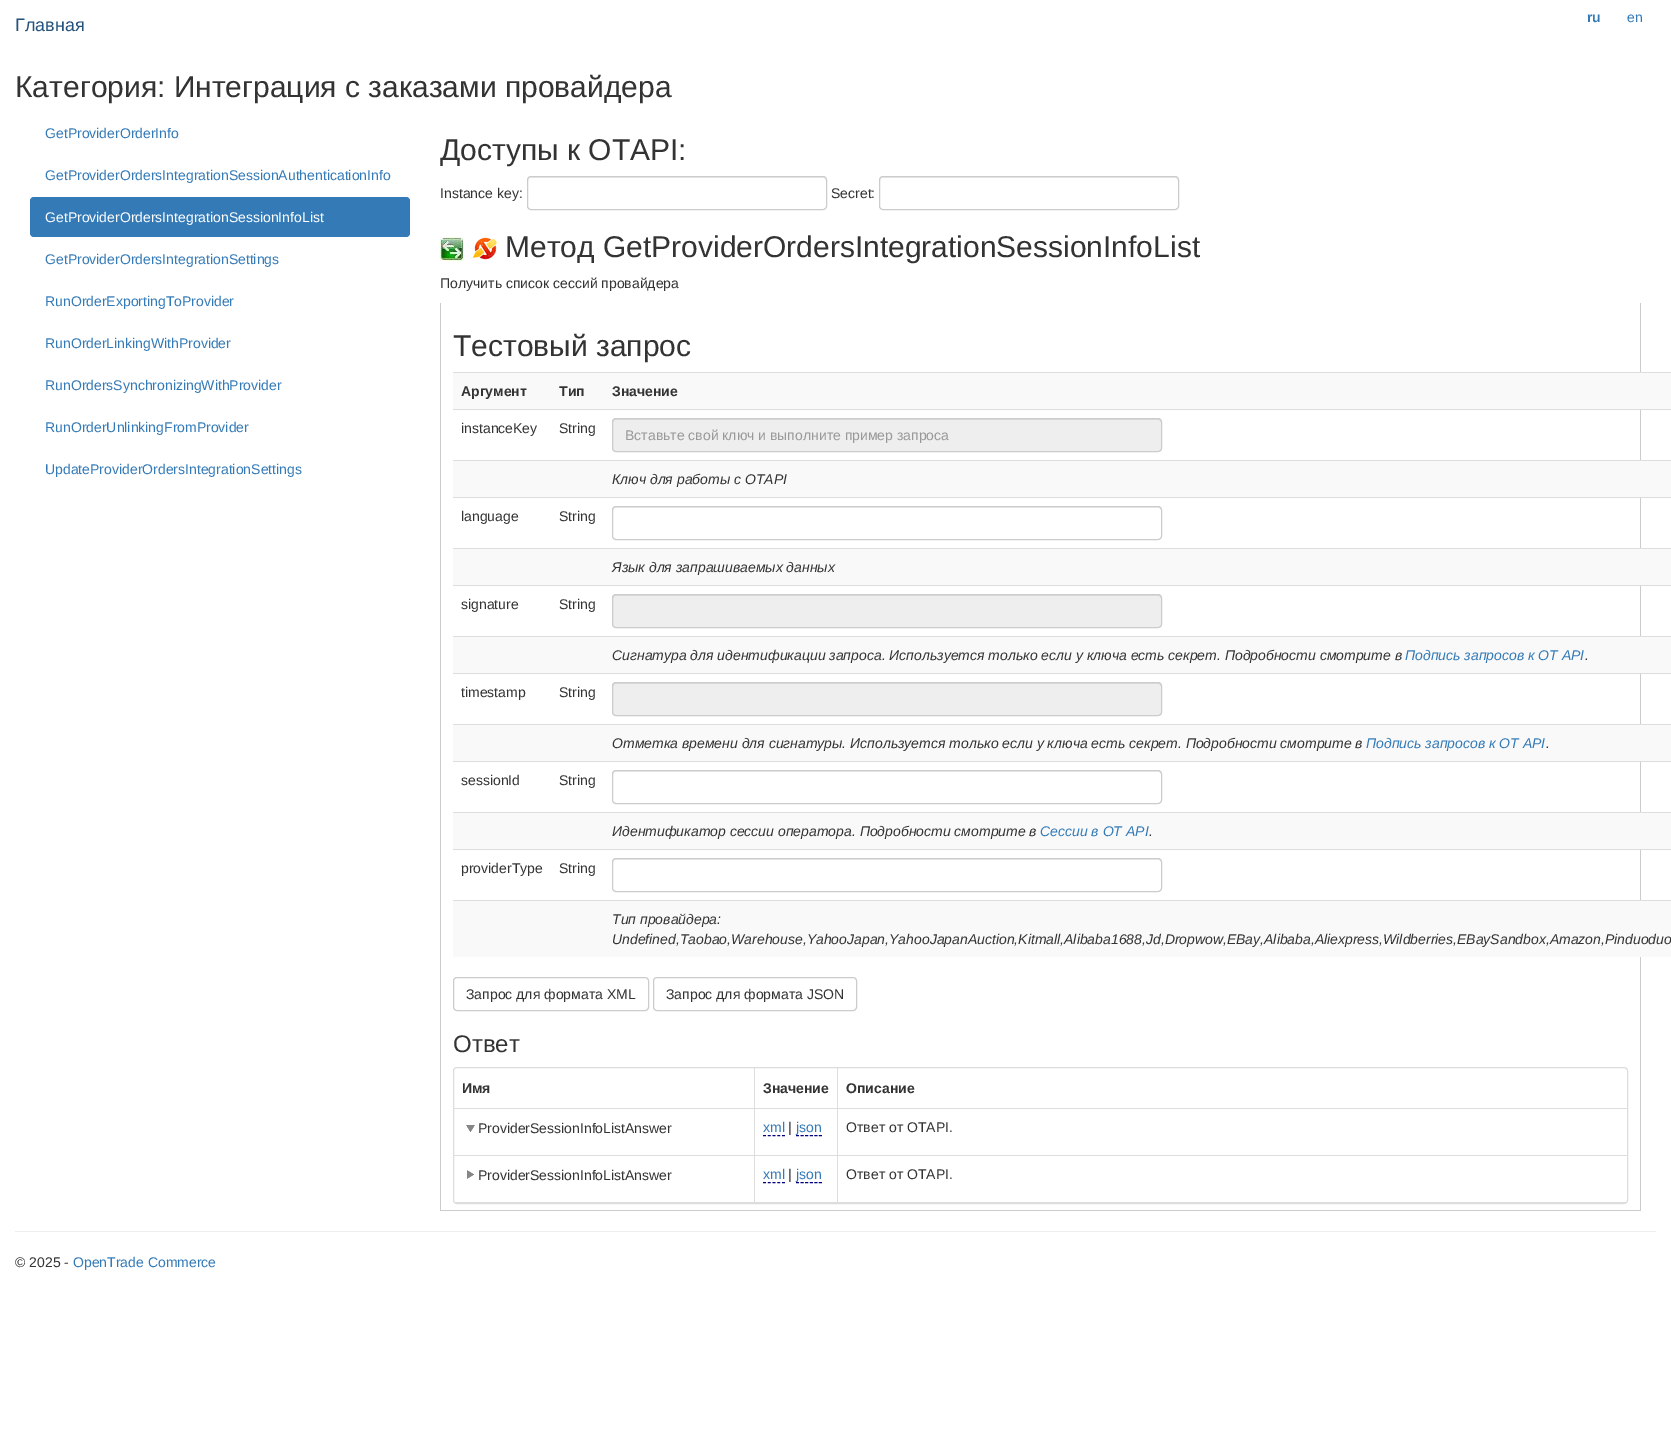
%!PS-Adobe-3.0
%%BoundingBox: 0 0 1671 1433
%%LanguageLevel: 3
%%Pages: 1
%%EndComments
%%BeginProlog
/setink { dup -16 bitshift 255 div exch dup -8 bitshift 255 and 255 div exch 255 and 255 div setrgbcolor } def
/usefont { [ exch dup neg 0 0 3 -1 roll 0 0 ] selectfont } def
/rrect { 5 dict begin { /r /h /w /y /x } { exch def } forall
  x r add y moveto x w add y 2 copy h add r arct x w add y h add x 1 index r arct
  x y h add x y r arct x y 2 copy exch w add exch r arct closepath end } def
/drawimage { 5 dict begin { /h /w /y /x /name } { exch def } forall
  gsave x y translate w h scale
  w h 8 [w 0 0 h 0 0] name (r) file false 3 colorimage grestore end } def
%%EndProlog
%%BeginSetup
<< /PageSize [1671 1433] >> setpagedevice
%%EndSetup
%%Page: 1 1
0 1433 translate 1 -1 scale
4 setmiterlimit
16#FFFFFF setink
0 0 1671 1433 rectfill
/LiberationSans-Regular 18 usefont
16#23527C setink
15 31 moveto (Главная) show
/LiberationSans-Bold 14 usefont
16#337AB7 setink
1587 22 moveto (ru) show
/LiberationSans-Regular 14 usefont
1627 22 moveto (en) show
/LiberationSans-Regular 30 usefont
16#333333 setink
15 97 moveto (Категория: Интеграция с заказами провайдера) show
/LiberationSans-Regular 14 usefont
16#337AB7 setink
45 138 moveto (GetProviderOrderInfo) show
45 180 moveto (GetProviderOrdersIntegrationSessionAuthenticationInfo) show
30 197 380 40 4 rrect fill
16#FFFFFF setink
45 222 moveto (GetProviderOrdersIntegrationSessionInfoList) show
16#337AB7 setink
[
    [(GetProviderOrdersIntegrationSettings) 45 264]
    [(RunOrderExportingToProvider) 45 306]
    [(RunOrderLinkingWithProvider) 45 348]
    [(RunOrdersSynchronizingWithProvider) 45 390]
    [(RunOrderUnlinkingFromProvider) 45 432]
    [(UpdateProviderOrdersIntegrationSettings) 45 474]
] { aload pop moveto show } forall
/LiberationSans-Regular 30 usefont
16#333333 setink
440 160 moveto (Доступы к OTAPI:) show
/LiberationSans-Regular 14 usefont
440 198 moveto (Instance key:) show
16#ECECEC setink
531 178 moveto 823 178 lineto 825 178 826 179 826 181 curveto 825 178 lineto 824 177 lineto 531 177 lineto 529 177 528 179 528 181 curveto 528 179 529 178 531 178 curveto closepath fill
16#CCCCCC setink
527.5 176.5 299 33 3.5 rrect stroke
16#333333 setink
831 198 moveto (Secret:) show
16#ECECEC setink
883 178 moveto 1175 178 lineto 1177 178 1178 179 1178 181 curveto 1177 178 lineto 1176 177 lineto 883 177 lineto 881 177 880 179 880 181 curveto 880 179 881 178 883 178 curveto closepath fill
16#CCCCCC setink
879.5 176.5 299 33 3.5 rrect stroke
(img1.raw) 440 237 24 24 drawimage
(img2.raw) 473 237 24 23 drawimage
/LiberationSans-Regular 30 usefont
16#333333 setink
505 257 moveto (Метод GetProviderOrdersIntegrationSessionInfoList) show
/LiberationSans-Regular 14 usefont
440 288 moveto (Получить список сессий провайдера) show
[
    [1640 303 1 908 16#CCCCCC]
    [440 1210 1201 1 16#CCCCCC]
    [440 303 1 908 16#CCCCCC]
] { aload pop setink rectfill } forall
/LiberationSans-Regular 30 usefont
16#333333 setink
453 356 moveto (Тестовый запрос) show
16#F9F9F9 setink
453 373 1218 36 rectfill
/LiberationSans-Bold 14 usefont
16#333333 setink
461 396 moveto (Аргумент) show
559 396 moveto (Тип) show
16#DDDDDD setink
453 372 1218 1 rectfill
16#333333 setink
612 396 moveto (Значение) show
/LiberationSans-Regular 14 usefont
461 433 moveto (instanceKey) show
559 433 moveto (String) show
16#DDDDDD setink
453 409 1218 1 rectfill
16#EEEEEE setink
612 418 550 34 4 rrect fill
16#DCDCDC setink
616 420 moveto 1158 420 lineto 1160 420 1161 421 1161 423 curveto 1161 422 lineto 1161 420 1160 419 1158 419 curveto 616 419 lineto 614 419 613 420 613 422 curveto 613 423 lineto 613 421 614 420 616 420 curveto closepath fill
16#CCCCCC setink
612.5 418.5 549 33 3.5 rrect stroke
16#999999 setink
625 440 moveto (Вставьте свой ключ и выполните пример запроса) show
16#F9F9F9 setink
453 461 1218 36 rectfill
16#DDDDDD setink
453 460 1218 1 rectfill
/LiberationSans-Italic 14 usefont
16#333333 setink
612 484 moveto (Ключ для работы с OTAPI) show
16#DDDDDD setink
453 497 1218 1 rectfill
16#ECECEC setink
616 508 moveto 1158 508 lineto 1160 508 1161 509 1161 511 curveto 1161 510 lineto 1161 508 1160 507 1158 507 curveto 616 507 lineto 614 507 613 508 613 510 curveto 613 511 lineto 613 509 614 508 616 508 curveto closepath fill
16#CCCCCC setink
612.5 506.5 549 33 3.5 rrect stroke
/LiberationSans-Regular 14 usefont
16#333333 setink
461 521 moveto (language) show
559 521 moveto (String) show
16#F9F9F9 setink
453 549 1218 36 rectfill
16#DDDDDD setink
453 548 1218 1 rectfill
/LiberationSans-Italic 14 usefont
16#333333 setink
612 572 moveto (Язык для запрашиваемых данных) show
16#DDDDDD setink
453 585 1218 1 rectfill
16#EEEEEE setink
612 594 550 34 4 rrect fill
16#DCDCDC setink
616 596 moveto 1158 596 lineto 1160 596 1161 597 1161 599 curveto 1161 598 lineto 1161 596 1160 595 1158 595 curveto 616 595 lineto 614 595 613 596 613 598 curveto 613 599 lineto 613 597 614 596 616 596 curveto closepath fill
16#CCCCCC setink
612.5 594.5 549 33 3.5 rrect stroke
/LiberationSans-Regular 14 usefont
16#333333 setink
461 609 moveto (signature) show
559 609 moveto (String) show
16#F9F9F9 setink
453 637 1218 36 rectfill
16#DDDDDD setink
453 636 1218 1 rectfill
/LiberationSans-Italic 14 usefont
16#333333 setink
612 660 moveto (Сигнатура для идентификации запроса. Используется только если у ключа есть секрет. Подробности смотрите в) show
16#337AB7 setink
1405 660 moveto (Подпись запросов к OT API) show
16#333333 setink
1585 660 moveto (.) show
16#DDDDDD setink
453 673 1218 1 rectfill
16#EEEEEE setink
612 682 550 34 4 rrect fill
16#DCDCDC setink
616 684 moveto 1158 684 lineto 1160 684 1161 685 1161 687 curveto 1161 686 lineto 1161 684 1160 683 1158 683 curveto 616 683 lineto 614 683 613 684 613 686 curveto 613 687 lineto 613 685 614 684 616 684 curveto closepath fill
16#CCCCCC setink
612.5 682.5 549 33 3.5 rrect stroke
/LiberationSans-Regular 14 usefont
16#333333 setink
461 697 moveto (timestamp) show
559 697 moveto (String) show
16#F9F9F9 setink
453 725 1218 36 rectfill
16#DDDDDD setink
453 724 1218 1 rectfill
/LiberationSans-Italic 14 usefont
16#333333 setink
612 748 moveto (Отметка времени для сигнатуры. Используется только если у ключа есть секрет. Подробности смотрите в) show
16#337AB7 setink
1366 748 moveto (Подпись запросов к OT API) show
16#333333 setink
1546 748 moveto (.) show
16#DDDDDD setink
453 761 1218 1 rectfill
16#ECECEC setink
616 772 moveto 1158 772 lineto 1160 772 1161 773 1161 775 curveto 1161 774 lineto 1161 772 1160 771 1158 771 curveto 616 771 lineto 614 771 613 772 613 774 curveto 613 775 lineto 613 773 614 772 616 772 curveto closepath fill
16#CCCCCC setink
612.5 770.5 549 33 3.5 rrect stroke
/LiberationSans-Regular 14 usefont
16#333333 setink
461 785 moveto (sessionId) show
559 785 moveto (String) show
16#F9F9F9 setink
453 813 1218 36 rectfill
16#DDDDDD setink
453 812 1218 1 rectfill
/LiberationSans-Italic 14 usefont
16#333333 setink
612 836 moveto (Идентификатор сессии оператора. Подробности смотрите в) show
16#337AB7 setink
1040 836 moveto (Сессии в OT API) show
16#333333 setink
1149 836 moveto (.) show
16#DDDDDD setink
453 849 1218 1 rectfill
16#ECECEC setink
616 860 moveto 1158 860 lineto 1160 860 1161 861 1161 863 curveto 1161 862 lineto 1161 860 1160 859 1158 859 curveto 616 859 lineto 614 859 613 860 613 862 curveto 613 863 lineto 613 861 614 860 616 860 curveto closepath fill
16#CCCCCC setink
612.5 858.5 549 33 3.5 rrect stroke
/LiberationSans-Regular 14 usefont
16#333333 setink
461 873 moveto (providerType) show
559 873 moveto (String) show
16#F9F9F9 setink
453 901 1218 56 rectfill
16#DDDDDD setink
453 900 1218 1 rectfill
/LiberationSans-Italic 14 usefont
16#333333 setink
612 924 moveto (Тип провайдера:) show
612 944 moveto (Undefined,Taobao,Warehouse,YahooJapan,YahooJapanAuction,Kitmall,Alibaba1688,Jd,Dropwow,EBay,Alibaba,Aliexpress,Wildberries,EBaySandbox,Amazon,Pinduoduo) show
16#CCCCCC setink
453.5 977.5 195 33 3.5 rrect stroke
/LiberationSans-Regular 14 usefont
16#333333 setink
466 999 moveto (Запрос для формата XML) show
16#CCCCCC setink
653.5 977.5 203 33 3.5 rrect stroke
16#333333 setink
666 999 moveto (Запрос для формата JSON) show
/LiberationSans-Regular 24 usefont
453 1052 moveto (Ответ) show
16#DDDDDD setink
453.5 1067.5 1174 136 3.5 rrect stroke
[
    [454 1202 1173 1 16#DDDDDD]
    [837 1155 790 1 16#DDDDDD]
    [837 1155 1 48 16#DDDDDD]
    [754 1155 84 1 16#DDDDDD]
    [837 1108 1 48 16#DDDDDD]
    [837 1108 790 1 16#DDDDDD]
    [837 1068 1 41 16#DDDDDD]
    [754 1155 1 48 16#DDDDDD]
    [454 1155 301 1 16#DDDDDD]
    [754 1108 1 48 16#DDDDDD]
    [754 1108 84 1 16#DDDDDD]
    [754 1068 1 41 16#DDDDDD]
    [454 1108 301 1 16#DDDDDD]
] { aload pop setink rectfill } forall
/LiberationSans-Bold 14 usefont
16#333333 setink
[
    [(Имя) 462 1093]
    [(Значение) 763 1093]
    [(Описание) 846 1093]
] { aload pop moveto show } forall
(img3.raw) 466 1125 9 7 drawimage
/LiberationSans-Regular 14 usefont
478 1133 moveto (ProviderSessionInfoListAnswer) show
16#337AB7 setink
763 1132 moveto (xml) show
16#000080 setink
[3 1.75] 0 setdash
763 1135.5 moveto 785 1135.5 lineto stroke
16#333333 setink
788 1132 moveto (|) show
16#337AB7 setink
796 1132 moveto (json) show
16#000080 setink
[3 1.6] 0 setdash
796 1135.5 moveto 822 1135.5 lineto stroke
16#333333 setink
846 1132 moveto (Ответ от OTAPI.) show
(img4.raw) 467 1170 7 9 drawimage
478 1180 moveto (ProviderSessionInfoListAnswer) show
16#337AB7 setink
763 1179 moveto (xml) show
16#000080 setink
[3 1.75] 0 setdash
763 1182.5 moveto 785 1182.5 lineto stroke
16#333333 setink
788 1179 moveto (|) show
16#337AB7 setink
796 1179 moveto (json) show
16#000080 setink
[3 1.6] 0 setdash
796 1182.5 moveto 822 1182.5 lineto stroke
16#333333 setink
846 1179 moveto (Ответ от OTAPI.) show
16#EEEEEE setink
15 1231 1641 1 rectfill
16#333333 setink
15 1267 moveto (© 2025 -) show
16#337AB7 setink
73 1267 moveto (OpenTrade Commerce) show
showpage
%%EOF
